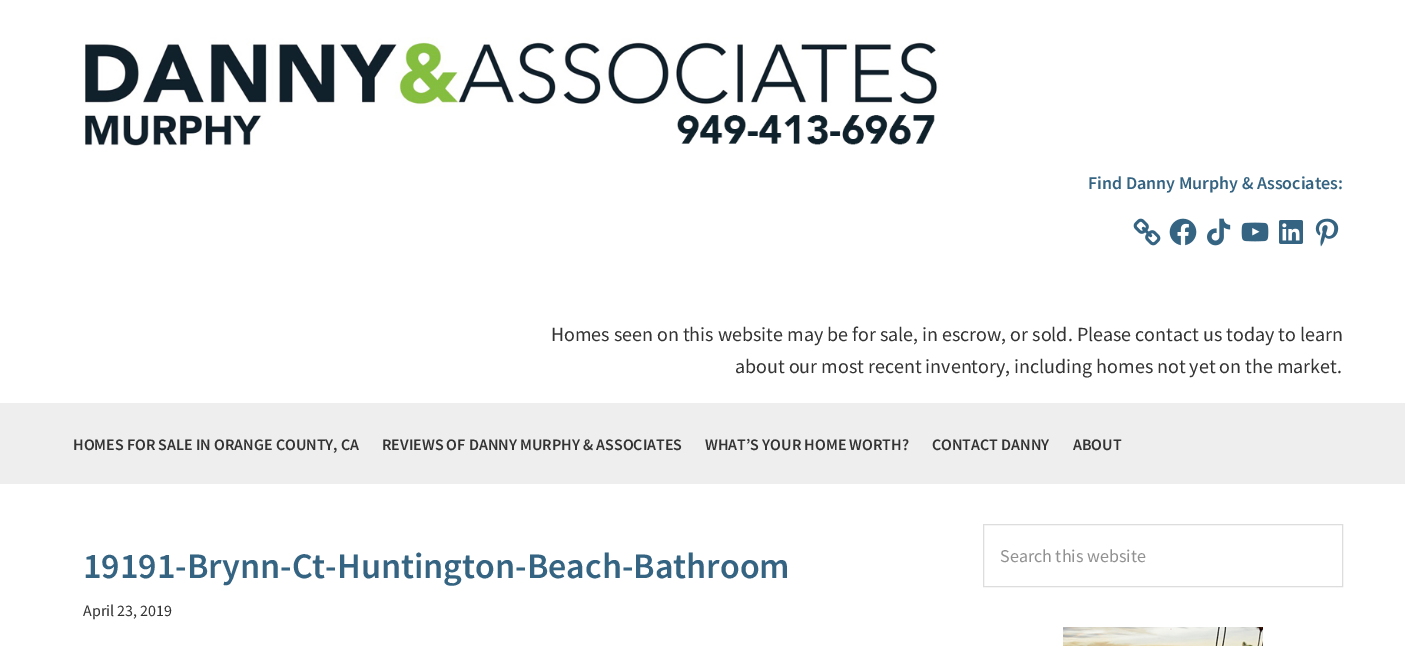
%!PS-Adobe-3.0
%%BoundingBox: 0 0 1405 646
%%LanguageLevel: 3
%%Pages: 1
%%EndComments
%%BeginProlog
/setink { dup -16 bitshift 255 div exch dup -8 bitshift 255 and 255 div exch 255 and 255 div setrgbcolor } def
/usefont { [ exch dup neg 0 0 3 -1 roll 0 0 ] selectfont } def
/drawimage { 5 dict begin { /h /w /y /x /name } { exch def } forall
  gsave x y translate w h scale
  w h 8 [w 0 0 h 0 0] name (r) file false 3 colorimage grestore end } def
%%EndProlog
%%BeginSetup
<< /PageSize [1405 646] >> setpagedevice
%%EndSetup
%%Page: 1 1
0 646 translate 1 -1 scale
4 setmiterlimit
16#FFFFFF setink
0 0 1405 646 rectfill
(img1.raw) 85 37 854 109 drawimage
/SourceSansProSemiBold-SemiBold 18 usefont
16#356482 setink
1088 189 moveto (Find Danny Murphy & Associates:) show
(img2.raw) 1133 218 28 28 drawimage
(img3.raw) 1169 218 28 28 drawimage
(img4.raw) 1207 218 24 28 drawimage
(img5.raw) 1241 222 28 20 drawimage
(img6.raw) 1279 220 24 24 drawimage
(img7.raw) 1315 218 24 29 drawimage
/SourceSansPro-Regular 20 usefont
16#333333 setink
551 341 moveto (Homes seen on this website may be for sale, in escrow, or sold. Please contact us today to learn) show
735 373 moveto (about our most recent inventory, including homes not yet on the market.) show
16#EEEEEE setink
0 403 1405 81 rectfill
/SourceSansProSemiBold-SemiBold 16 usefont
16#333333 setink
[
    [(HOMES FOR SALE IN ORANGE COUNTY, CA) 73 450]
    [(REVIEWS OF DANNY MURPHY & ASSOCIATES) 382 450]
    [(WHAT’S YOUR HOME WORTH?) 705 450]
    [(CONTACT DANNY) 932 450]
    [(ABOUT) 1073 450]
] { aload pop moveto show } forall
/SourceSansProSemiBold-SemiBold 36 usefont
16#356482 setink
83 578 moveto (19191-Brynn-Ct-Huntington-Beach-Bathroom) show
/SourceSansPro-Regular 16 usefont
16#333333 setink
83 616 moveto (April 23, 2019) show
16#DDDDDD setink
983.5 524.5 359 62 rectstroke
/SourceSansPro-Regular 18 usefont
16#919191 setink
1000 562 moveto (Search this website) show
(img8.raw) 1063 627 200 19 drawimage
showpage
%%EOF
